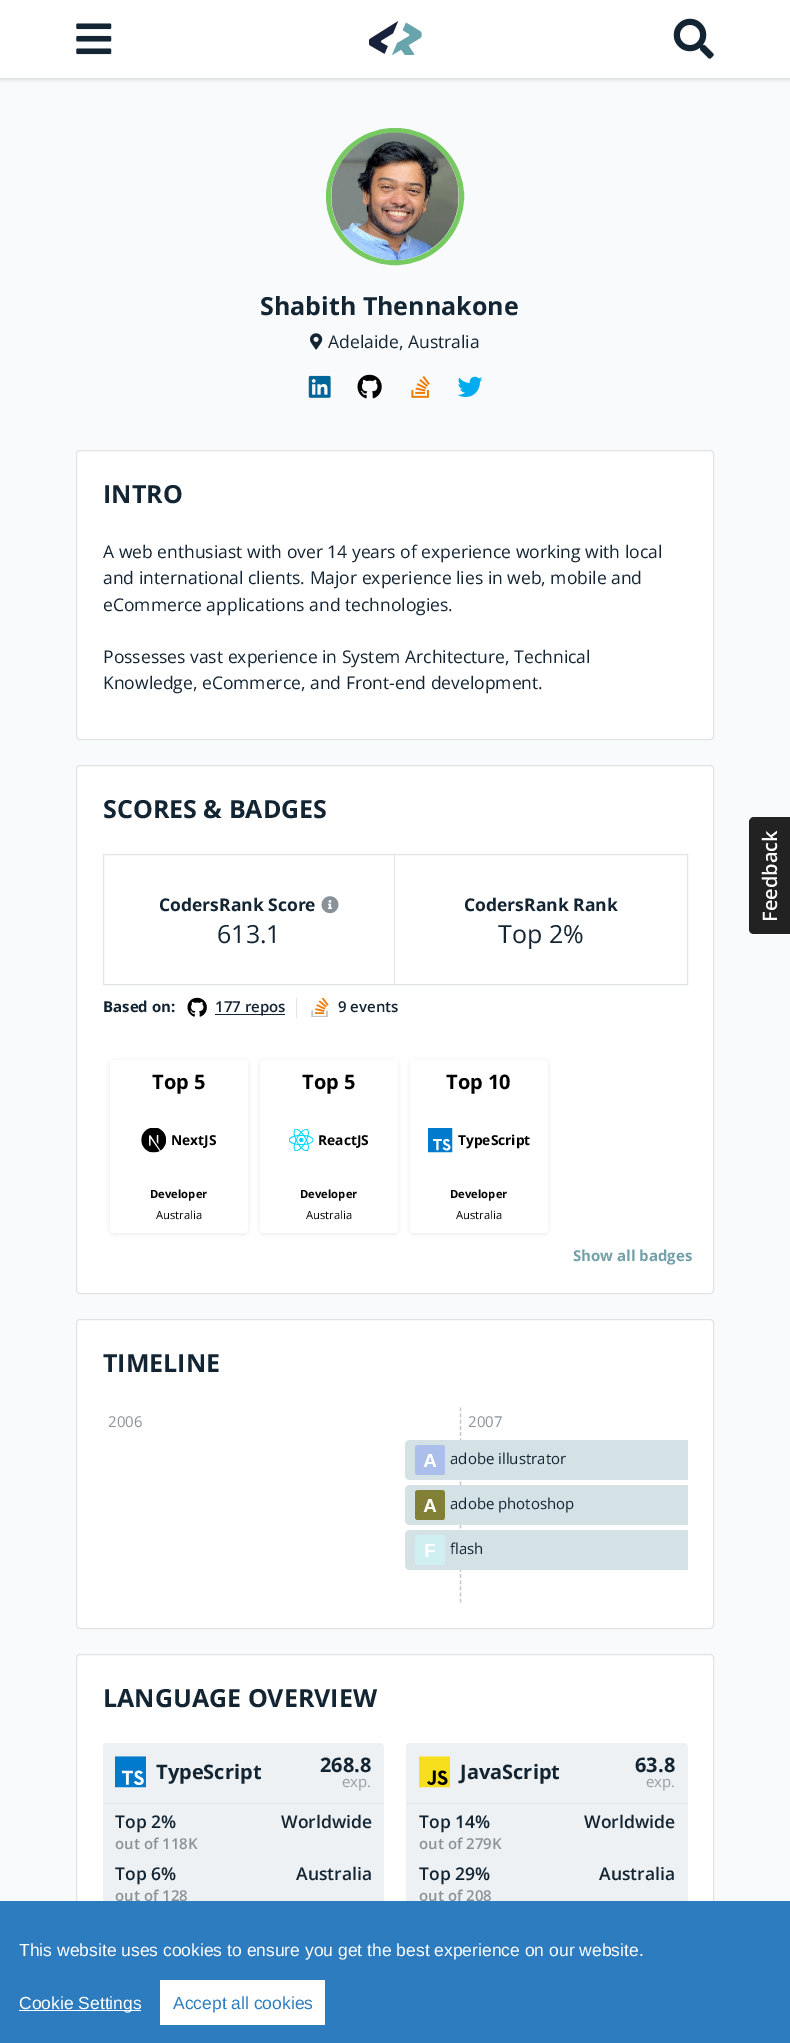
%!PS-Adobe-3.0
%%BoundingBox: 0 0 790 2043
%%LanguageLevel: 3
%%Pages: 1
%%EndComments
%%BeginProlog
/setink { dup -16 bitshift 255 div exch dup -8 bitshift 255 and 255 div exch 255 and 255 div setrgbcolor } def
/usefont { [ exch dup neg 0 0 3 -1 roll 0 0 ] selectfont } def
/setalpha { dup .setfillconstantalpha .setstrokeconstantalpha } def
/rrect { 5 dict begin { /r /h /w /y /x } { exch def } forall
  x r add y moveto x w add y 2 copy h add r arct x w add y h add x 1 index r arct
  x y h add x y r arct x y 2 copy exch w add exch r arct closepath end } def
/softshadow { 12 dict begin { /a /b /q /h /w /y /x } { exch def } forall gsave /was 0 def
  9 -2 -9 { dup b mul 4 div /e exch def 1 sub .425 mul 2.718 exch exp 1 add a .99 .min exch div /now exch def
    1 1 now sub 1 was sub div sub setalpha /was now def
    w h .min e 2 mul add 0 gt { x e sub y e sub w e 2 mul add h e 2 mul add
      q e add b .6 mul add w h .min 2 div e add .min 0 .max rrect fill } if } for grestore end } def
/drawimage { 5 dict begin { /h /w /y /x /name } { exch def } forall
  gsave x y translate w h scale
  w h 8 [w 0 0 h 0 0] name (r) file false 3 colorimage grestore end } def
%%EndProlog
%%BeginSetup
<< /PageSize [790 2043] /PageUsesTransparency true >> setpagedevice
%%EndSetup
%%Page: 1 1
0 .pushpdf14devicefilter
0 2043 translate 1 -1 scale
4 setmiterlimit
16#F9FAFB setink
0 0 790 2043 rectfill
16#0A3236 setink
0 1 790 78 0 2 0.2 softshadow
16#FFFFFF setink
0 0 790 78 rectfill
(img1.raw) 76 23 36 32 drawimage
(img2.raw) 369 21 53 34 drawimage
(img3.raw) 673 18 41 41 drawimage
328.5 130.5 133 132 66 rrect gsave fill grestore
16#76CA61 setink
5 setlinewidth
stroke
(img4.raw) 331 132 128 128 drawimage
/OpenSans-Bold 25 usefont
16#132433 setink
260 315 moveto (Shabith Thennakone) show
(img5.raw) 310 333 13 17 drawimage
/OpenSans-Regular 17.5 usefont
328 348 moveto (Adelaide, Australia) show
(img6.raw) 308 375 23 23 drawimage
(img7.raw) 357 374 25 25 drawimage
(img8.raw) 411 376 19 22 drawimage
(img9.raw) 457 376 26 21 drawimage
16#FFFFFF setink
76.5 450.5 637 289 3.5 rrect gsave fill grestore
16#E0E4E5 setink
1 setlinewidth
stroke
/OpenSans-Bold 25 usefont
16#132433 setink
103 503 moveto (INTRO) show
/OpenSans-Regular 17.5 usefont
[
    [(A web enthusiast with over 14 years of experience working with local) 103 558]
    [(and international clients. Major experience lies in web, mobile and) 103 584]
    [(eCommerce applications and technologies.) 103 611]
    [(Possesses vast experience in System Architecture, Technical) 103 663]
    [(Knowledge, eCommerce, and Front-end development.) 103 689]
] { aload pop moveto show } forall
16#FFFFFF setink
76.5 765.5 637 528 3.5 rrect gsave fill grestore
16#E0E4E5 setink
stroke
/OpenSans-Bold 25 usefont
16#132433 setink
103 818 moveto (SCORES & BADGES) show
16#E0E4E5 setink
103.5 854.5 584 130 rectstroke
394 855 1 129 rectfill
/OpenSans-Bold 17.5 usefont
16#132433 setink
159 911 moveto (CodersRank Score) show
(img10.raw) 321 896 18 18 drawimage
/OpenSans-Regular 25 usefont
217 943 moveto (613.1) show
/OpenSans-Bold 17.5 usefont
464 911 moveto (CodersRank Rank) show
/OpenSans-Regular 25 usefont
498 943 moveto (Top 2%) show
/OpenSans-Bold 15 usefont
103 1012 moveto (Based on:) show
(img11.raw) 187 997 20 20 drawimage
215 1014 70 1 rectfill
/OpenSans-SemiBold 15 usefont
215 1012 moveto (177 repos) show
16#E0E4E5 setink
296 998 1 20 rectfill
(img12.raw) 311 998 18 19 drawimage
16#132433 setink
338 1012 moveto (9 events) show
16#0A3236 setink
110 1061 138 173 4 2 0.1 softshadow
16#FFFFFF setink
110 1060 138 173 4 rrect fill
/OpenSans-Bold 20 usefont
16#000000 setink
152 1089 moveto (Top 5) show
(img13.raw) 141 1128 25 25 drawimage
/OpenSans-Bold 13.75 usefont
171 1145 moveto (NextJS) show
/OpenSans-Bold 11.25 usefont
150 1198 moveto (Developer) show
/OpenSans-Regular 11.25 usefont
156 1219 moveto (Australia) show
16#0A3236 setink
260 1061 138 173 4 2 0.1 softshadow
16#FFFFFF setink
260 1060 138 173 4 rrect fill
/OpenSans-Bold 20 usefont
16#000000 setink
302 1089 moveto (Top 5) show
(img14.raw) 289 1129 25 22 drawimage
/OpenSans-Bold 13.75 usefont
318 1145 moveto (ReactJS) show
/OpenSans-Bold 11.25 usefont
300 1198 moveto (Developer) show
/OpenSans-Regular 11.25 usefont
306 1219 moveto (Australia) show
16#0A3236 setink
410 1061 138 173 4 2 0.1 softshadow
16#FFFFFF setink
410 1060 138 173 4 rrect fill
/OpenSans-Bold 20 usefont
16#000000 setink
446 1089 moveto (Top 10) show
(img15.raw) 428 1128 25 25 drawimage
/OpenSans-Bold 13.75 usefont
458 1145 moveto (TypeScript) show
/OpenSans-Bold 11.25 usefont
450 1198 moveto (Developer) show
/OpenSans-Regular 11.25 usefont
456 1219 moveto (Australia) show
/OpenSans-Bold 15 usefont
16#72A0A8 setink
573 1261 moveto (Show all badges) show
16#FFFFFF setink
76.5 1319.5 637 309 3.5 rrect gsave fill grestore
16#E0E4E5 setink
stroke
/OpenSans-Bold 25 usefont
16#132433 setink
103 1372 moveto (TIMELINE) show
16#C4C8CC setink
1.2 setlinewidth
[3.75 2.42] 0 setdash
460.5 1407.5 moveto 460.5 1602.5 lineto stroke
/OpenSans-Regular 15 usefont
16#899299 setink
108 1427 moveto (2006) show
468 1427 moveto (2007) show
16#D4E1E5 setink
410 1440 moveto 688 1440 lineto 688 1480 lineto 410 1480 lineto 407 1480 405 1478 405 1475 curveto 405 1445 lineto 405 1442 407 1440 410 1440 curveto closepath fill
(img16.raw) 415 1445 30 30 drawimage
16#132433 setink
450 1464 moveto (adobe illustrator) show
16#D4E1E5 setink
410 1485 moveto 688 1485 lineto 688 1525 lineto 410 1525 lineto 407 1525 405 1523 405 1520 curveto 405 1490 lineto 405 1487 407 1485 410 1485 curveto closepath fill
(img17.raw) 415 1490 30 30 drawimage
16#132433 setink
450 1509 moveto (adobe photoshop) show
16#D4E1E5 setink
410 1530 moveto 688 1530 lineto 688 1570 lineto 410 1570 lineto 407 1570 405 1568 405 1565 curveto 405 1535 lineto 405 1532 407 1530 410 1530 curveto closepath fill
(img18.raw) 415 1535 30 30 drawimage
16#132433 setink
450 1554 moveto (flash) show
16#FFFFFF setink
80 1654.5 moveto 710 1654.5 lineto 712 1654.5 713.5 1656 713.5 1658 curveto 713.5 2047.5 lineto 76.5 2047.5 lineto 76.5 1658 lineto 76.5 1656 78 1654.5 80 1654.5 curveto closepath gsave fill grestore
16#E0E4E5 setink
1 setlinewidth
[] 0 setdash
stroke
/OpenSans-Bold 25 usefont
16#132433 setink
103 1707 moveto (LANGUAGE OVERVIEW) show
16#EDF1F3 setink
103 1743 281 171 4 rrect fill
(img19.raw) 115 1756 31 32 drawimage
/OpenSans-Bold 20 usefont
16#132433 setink
156 1779 moveto (TypeScript) show
320 1772 moveto (268.8) show
/OpenSans-Regular 15 usefont
16#999EA4 setink
342 1787 moveto (exp.) show
16#E1E9EC setink
103 1803 281 1 rectfill
/OpenSans-SemiBold 17.5 usefont
16#132433 setink
115 1828 moveto (Top 2%) show
/OpenSans-SemiBold 15 usefont
16#899299 setink
115 1849 moveto (out of 118K) show
/OpenSans-SemiBold 17.5 usefont
16#132433 setink
281 1828 moveto (Worldwide) show
115 1880 moveto (Top 6%) show
/OpenSans-SemiBold 15 usefont
16#899299 setink
115 1901 moveto (out of 128) show
/OpenSans-SemiBold 17.5 usefont
16#132433 setink
296 1880 moveto (Australia) show
16#EDF1F3 setink
406 1743 282 171 4 rrect fill
(img20.raw) 419 1756 31 32 drawimage
/OpenSans-Bold 20 usefont
16#132433 setink
460 1779 moveto (JavaScript) show
635 1772 moveto (63.8) show
/OpenSans-Regular 15 usefont
16#999EA4 setink
646 1787 moveto (exp.) show
16#E1E9EC setink
406 1803 282 1 rectfill
/OpenSans-SemiBold 17.5 usefont
16#132433 setink
419 1828 moveto (Top 14%) show
/OpenSans-SemiBold 15 usefont
16#899299 setink
419 1849 moveto (out of 279K) show
/OpenSans-SemiBold 17.5 usefont
16#132433 setink
584 1828 moveto (Worldwide) show
419 1880 moveto (Top 29%) show
/OpenSans-SemiBold 15 usefont
16#899299 setink
419 1901 moveto (out of 208) show
/OpenSans-SemiBold 17.5 usefont
16#132433 setink
599 1880 moveto (Australia) show
16#222222 setink
749 929 moveto 749 822 lineto 749 820 751 817 754 817 curveto 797 817 lineto 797 934 lineto 754 934 lineto 751 934 749 932 749 929 curveto closepath fill
/OpenSans-SemiBold 20 usefont
16#FFFFFF setink
gsave 777 922 translate -90 rotate 0 0 moveto (Feedback) show grestore
16#2C7CBF setink
0 1901 790 142 rectfill
/LiberationSans-Regular 17.5 usefont
16#FFFFFF setink
19 1956 moveto (This website uses cookies to ensure you get the best experience on our website.) show
19 2010 122 1 rectfill
19 2009 moveto (Cookie Settings) show
160 1980 165 45 rectfill
16#2C7CBF setink
173 2009 moveto (Accept all cookies) show
.poppdf14devicefilter showpage
%%EOF
